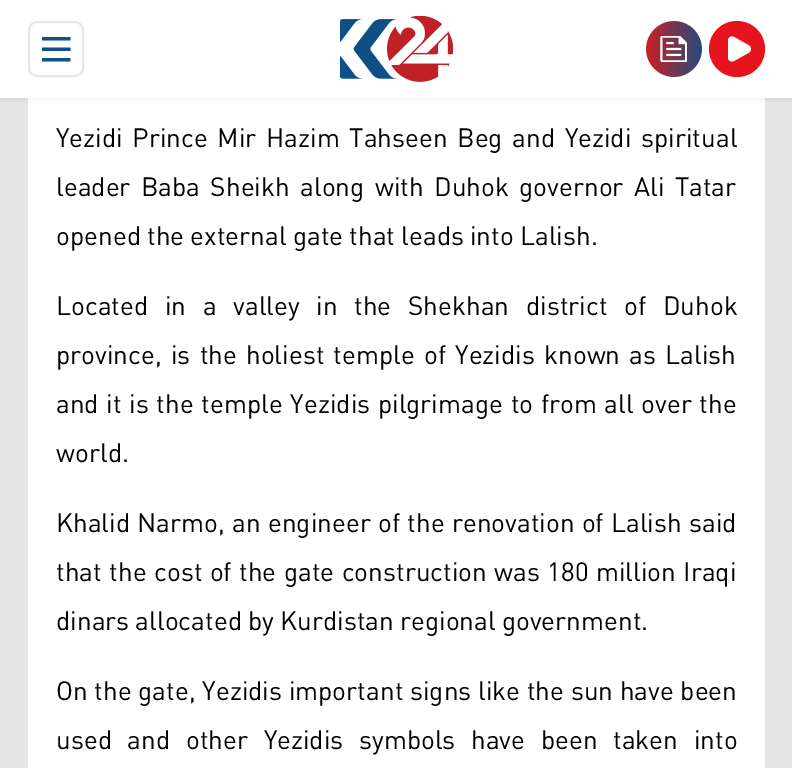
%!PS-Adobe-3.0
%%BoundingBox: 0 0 792 768
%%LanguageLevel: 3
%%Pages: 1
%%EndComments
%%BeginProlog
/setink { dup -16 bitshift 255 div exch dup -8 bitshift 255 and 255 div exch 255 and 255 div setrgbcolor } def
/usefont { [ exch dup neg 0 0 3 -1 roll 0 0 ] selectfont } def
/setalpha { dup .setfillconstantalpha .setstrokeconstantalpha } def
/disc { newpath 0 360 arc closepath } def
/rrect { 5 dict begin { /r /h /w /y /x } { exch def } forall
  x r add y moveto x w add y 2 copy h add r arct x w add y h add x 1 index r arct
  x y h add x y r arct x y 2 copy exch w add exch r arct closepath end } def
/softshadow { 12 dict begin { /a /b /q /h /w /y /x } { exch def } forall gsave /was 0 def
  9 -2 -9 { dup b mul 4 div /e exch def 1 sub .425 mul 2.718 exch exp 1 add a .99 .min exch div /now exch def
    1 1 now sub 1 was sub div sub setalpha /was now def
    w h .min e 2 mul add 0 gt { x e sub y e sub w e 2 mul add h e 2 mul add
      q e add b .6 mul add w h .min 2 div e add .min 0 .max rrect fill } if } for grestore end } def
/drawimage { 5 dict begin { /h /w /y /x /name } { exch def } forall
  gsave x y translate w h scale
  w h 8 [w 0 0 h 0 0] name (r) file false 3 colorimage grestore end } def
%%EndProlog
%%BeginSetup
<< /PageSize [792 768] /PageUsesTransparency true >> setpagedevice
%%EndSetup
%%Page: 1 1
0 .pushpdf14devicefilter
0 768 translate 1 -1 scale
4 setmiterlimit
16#E5E5E5 setink
0 0 792 768 rectfill
16#FFFFFF setink
28 98 737 670 rectfill
16#000000 setink
0 2 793 98 0 2 0.05 softshadow
16#FFFFFF setink
0 0 792 98 rectfill
16#E8E8E8 setink
2 setlinewidth
29 22 54 54 8 rrect stroke
16#0F4F87 setink
42 61.5 moveto 42 58 lineto 70.5 58 lineto 70.5 61.5 lineto closepath 42 51 moveto 42 47.5 lineto 70.5 47.5 lineto 70.5 51 lineto closepath 42 40.5 moveto 42 37 lineto 70.5 37 lineto 70.5 40.5 lineto closepath fill
(img1.raw) 340 16 113 66 drawimage
(img2.raw) 646 21 56 56 drawimage
16#E7131D setink
737 49 28 disc fill
16#FFFFFF setink
749 45.5 moveto 751.5 47 751.5 51 749 52.5 curveto 734 61 lineto 731 62.5 728 60.5 728 57.5 curveto 728 40.5 lineto 728 37.5 731 35.5 734 37 curveto closepath fill
/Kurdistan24-Regular 24.5 usefont
16#000000 setink
56 147 moveto 3.5 0 32 (Yezidi Prince Mir Hazim Tahseen Beg and Yezidi spiritual) widthshow
56 196 moveto 4.25 0 32 (leader Baba Sheikh along with Duhok governor Ali Tatar) widthshow
56 245 moveto (opened the external gate that leads into Lalish.) show
56 315 moveto 10.5 0 32 (Located in a valley in the Shekhan district of Duhok) widthshow
56 364 moveto 3 0 32 (province, is the holiest temple of Yezidis known as Lalish) widthshow
56 413 moveto 1.5 0 32 (and it is the temple Yezidis pilgrimage to from all over the) widthshow
56 462 moveto (world.) show
56 532 moveto 1.1 0 32 (Khalid Narmo, an engineer of the renovation of Lalish said) widthshow
56 581 moveto 1.25 0 32 (that the cost of the gate construction was 180 million Iraqi) widthshow
56 630 moveto (dinars allocated by Kurdistan regional government.) show
56 700 moveto 0.5 0 32 (On the gate, Yezidis important signs like the sun have been) widthshow
56 749 moveto 9.5 0 32 (used and other Yezidis symbols have been taken into) widthshow
.poppdf14devicefilter showpage
%%EOF
